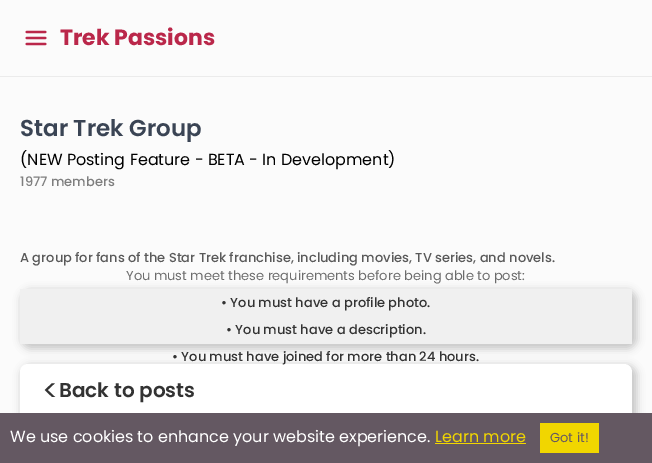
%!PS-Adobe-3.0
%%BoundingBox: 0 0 652 463
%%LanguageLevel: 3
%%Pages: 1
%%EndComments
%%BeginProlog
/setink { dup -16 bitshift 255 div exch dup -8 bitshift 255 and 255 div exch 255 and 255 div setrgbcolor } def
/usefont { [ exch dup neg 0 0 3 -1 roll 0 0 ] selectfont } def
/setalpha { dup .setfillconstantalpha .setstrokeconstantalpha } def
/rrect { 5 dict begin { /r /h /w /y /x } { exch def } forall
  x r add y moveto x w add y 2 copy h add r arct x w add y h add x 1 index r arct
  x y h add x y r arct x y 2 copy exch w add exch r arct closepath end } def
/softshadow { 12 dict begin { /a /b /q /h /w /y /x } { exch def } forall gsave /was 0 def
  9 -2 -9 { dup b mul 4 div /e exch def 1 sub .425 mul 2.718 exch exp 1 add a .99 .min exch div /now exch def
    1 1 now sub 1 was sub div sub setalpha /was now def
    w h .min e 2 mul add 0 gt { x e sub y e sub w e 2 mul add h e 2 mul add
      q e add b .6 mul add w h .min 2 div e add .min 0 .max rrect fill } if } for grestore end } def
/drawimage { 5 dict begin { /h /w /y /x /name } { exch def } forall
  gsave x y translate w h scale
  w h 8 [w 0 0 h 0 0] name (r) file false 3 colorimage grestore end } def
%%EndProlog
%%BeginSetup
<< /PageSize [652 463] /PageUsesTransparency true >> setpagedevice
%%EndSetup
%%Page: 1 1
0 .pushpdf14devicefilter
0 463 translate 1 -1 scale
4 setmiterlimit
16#FBFBFB setink
0 0 652 463 rectfill
16#EBEBEB setink
0 76 652 1 rectfill
(img1.raw) 25 30 22 16 drawimage
/Poppins-Bold 22 usefont
16#BA274A setink
60 45 moveto (Trek Passions) show
/Poppins-SemiBold 23 usefont
16#3A4454 setink
20 136 moveto (Star Trek Group) show
/Poppins-Regular 16 usefont
16#000000 setink
20 165 moveto (\(NEW Posting Feature - BETA - In Development\)) show
/Poppins-Medium 13 usefont
16#7E7E7E setink
20 186 moveto (1977 members) show
16#595959 setink
20 262 moveto (A group for fans of the Star Trek franchise, including movies, TV series, and novels.) show
16#000000 setink
21 290 616 59 10 4 0.2 softshadow
16#F0F0F0 setink
20 289 612 55 rectfill
/Poppins-Regular 13 usefont
16#6C6C6C setink
126 280 moveto (You must meet these requirements before being able to post:) show
/Poppins-Medium 13 usefont
16#333333 setink
221 307 moveto (• You must have a profile photo.) show
226 334 moveto (• You must have a description.) show
16#000000 setink
21 365 616 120 10 4 0.2 softshadow
16#FFFFFF setink
20 364 612 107 8 rrect fill
16#333333 setink
172 361 moveto (• You must have joined for more than 24 hours.) show
/Poppins-Regular 30 usefont
42 401 moveto -3 0 (<) ashow
/Poppins-SemiBold 20 usefont
59 397 moveto (Back to posts) show
16#645862 setink
0 413 652 50 rectfill
/Poppins-Regular 16 usefont
16#FFFFFF setink
10 442 moveto (We use cookies to enhance your website experience.) show
16#F1D600 setink
435 442 moveto (Learn more) show
435 443 91 1 rectfill
540 423 59 30 rectfill
/Poppins-Regular 13 usefont
16#645862 setink
550 442 moveto (Got it!) show
.poppdf14devicefilter showpage
%%EOF
